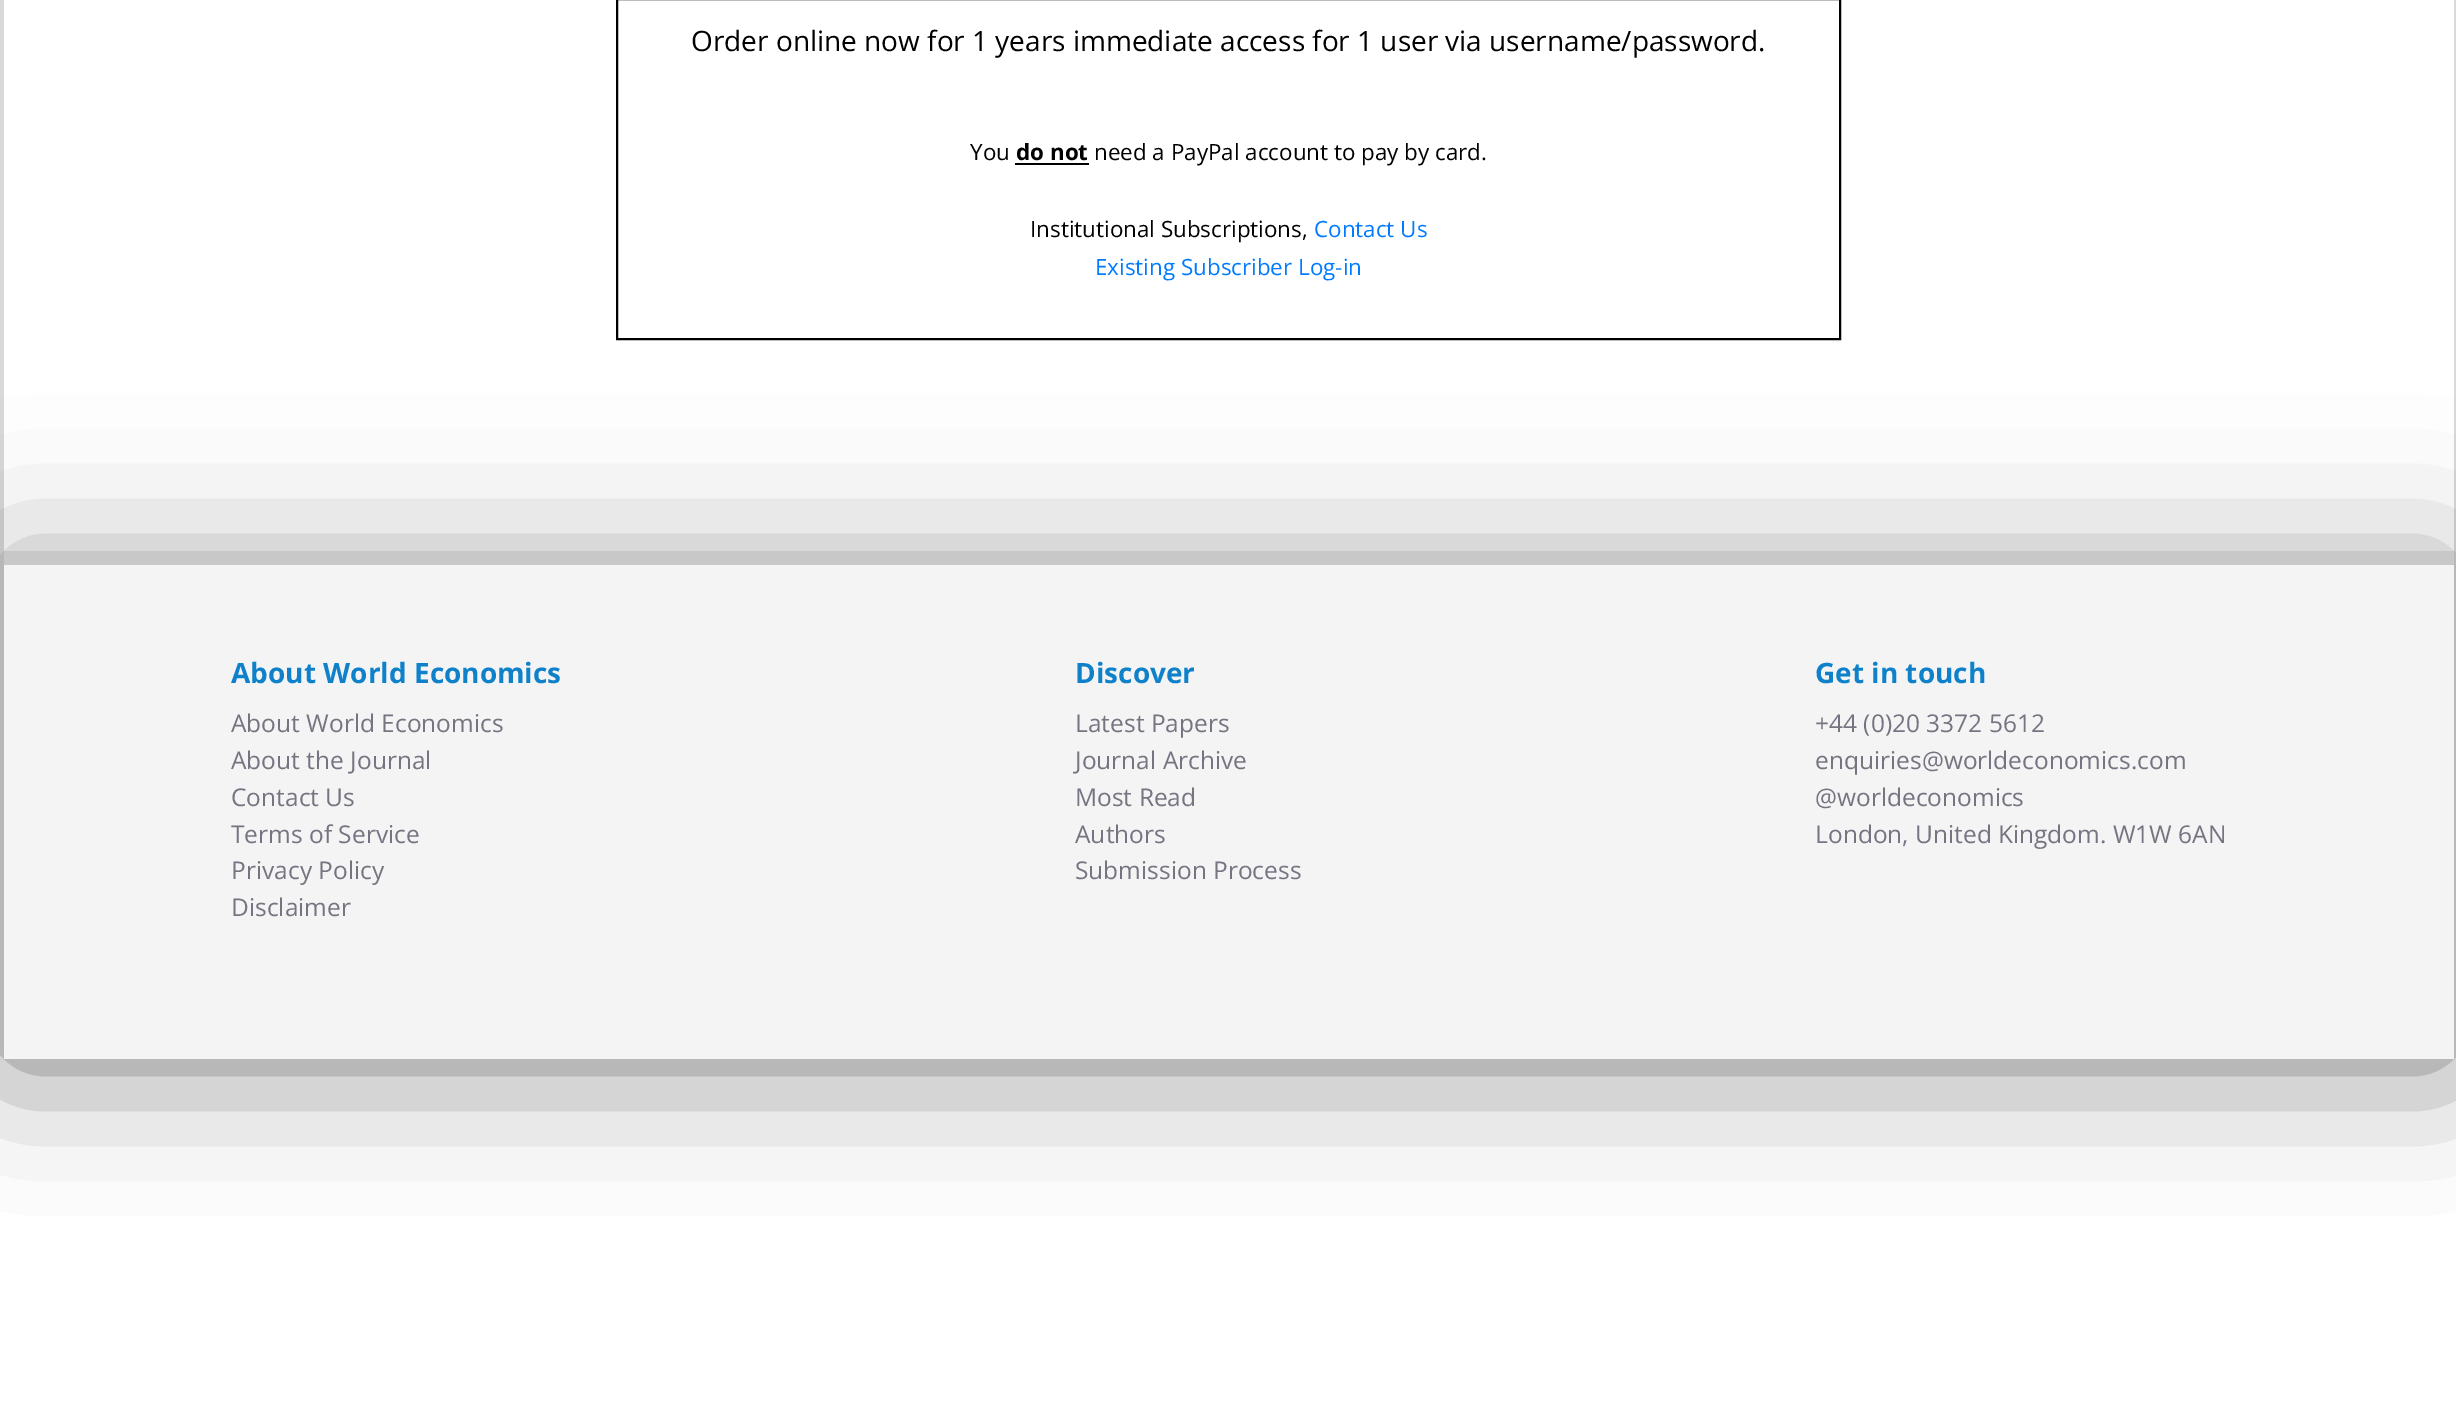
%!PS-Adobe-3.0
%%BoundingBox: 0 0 2456 1422
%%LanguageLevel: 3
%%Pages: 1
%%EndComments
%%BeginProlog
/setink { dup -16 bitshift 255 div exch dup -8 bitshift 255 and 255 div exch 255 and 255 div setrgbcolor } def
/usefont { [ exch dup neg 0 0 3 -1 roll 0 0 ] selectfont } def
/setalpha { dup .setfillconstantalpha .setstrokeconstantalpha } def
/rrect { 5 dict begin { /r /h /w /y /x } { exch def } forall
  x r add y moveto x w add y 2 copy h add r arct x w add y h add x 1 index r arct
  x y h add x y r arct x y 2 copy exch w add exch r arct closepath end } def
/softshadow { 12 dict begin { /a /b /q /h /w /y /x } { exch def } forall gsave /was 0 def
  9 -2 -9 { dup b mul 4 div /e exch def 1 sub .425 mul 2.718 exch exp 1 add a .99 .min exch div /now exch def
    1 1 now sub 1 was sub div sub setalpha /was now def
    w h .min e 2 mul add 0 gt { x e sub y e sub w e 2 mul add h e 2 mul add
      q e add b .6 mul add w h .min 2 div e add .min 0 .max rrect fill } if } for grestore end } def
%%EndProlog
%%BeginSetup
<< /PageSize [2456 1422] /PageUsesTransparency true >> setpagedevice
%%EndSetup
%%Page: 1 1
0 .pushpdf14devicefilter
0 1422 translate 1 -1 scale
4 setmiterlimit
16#FFFFFF setink
0 0 2456 1422 rectfill
gsave
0 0 moveto 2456 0 lineto 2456 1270 lineto 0 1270 lineto closepath 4 -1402 moveto 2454 -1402 lineto 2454 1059 lineto 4 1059 lineto closepath eoclip newpath
16#000000 setink
4 -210 2450 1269 0 70 0.3 softshadow
grestore
16#000000 setink
2 setlinewidth
617 -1 1223 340 rectstroke
/OpenSans-Regular 28 usefont
691 51 moveto (Order online now for 1 years immediate access for 1 user via username/password.) show
/OpenSans-Regular 22.4 usefont
970 160 moveto (You) show
/OpenSans-Bold 22.4 usefont
1016 160 moveto (do not) show
1015 163 74 2 rectfill
/OpenSans-Regular 22.4 usefont
1094 160 moveto (need a PayPal account to pay by card.) show
1030 237 moveto (Institutional Subscriptions,) show
16#007BFF setink
1314 237 moveto (Contact Us) show
1095 275 moveto (Existing Subscriber Log-in) show
16#000000 setink
4 551 2450 508 0 70 0.3 softshadow
16#C8C8C8 setink
4 551 2450 14 rectfill
16#F4F4F4 setink
4 565 2450 494 rectfill
/OpenSans-Bold 28 usefont
16#0E81CA setink
231 683 moveto (About World Economics) show
/OpenSans-Regular 24.5 usefont
16#757481 setink
[
    [(About World Economics) 231 732]
    [(About the Journal) 231 769]
    [(Contact Us) 231 806]
    [(Terms of Service) 231 843]
    [(Privacy Policy) 231 879]
    [(Disclaimer) 231 916]
] { aload pop moveto show } forall
/OpenSans-Bold 28 usefont
16#0E81CA setink
1075 683 moveto (Discover) show
/OpenSans-Regular 24.5 usefont
16#757481 setink
[
    [(Latest Papers) 1075 732]
    [(Journal Archive) 1075 769]
    [(Most Read) 1075 806]
    [(Authors) 1075 843]
    [(Submission Process) 1075 879]
] { aload pop moveto show } forall
/OpenSans-Bold 28 usefont
16#0E81CA setink
1815 683 moveto (Get in touch) show
/OpenSans-Regular 24.5 usefont
16#757481 setink
[
    [(+44 \(0\)20 3372 5612) 1815 732]
    [(enquiries@worldeconomics.com) 1815 769]
    [(@worldeconomics) 1815 806]
    [(London, United Kingdom. W1W 6AN) 1815 843]
] { aload pop moveto show } forall
.poppdf14devicefilter showpage
%%EOF
